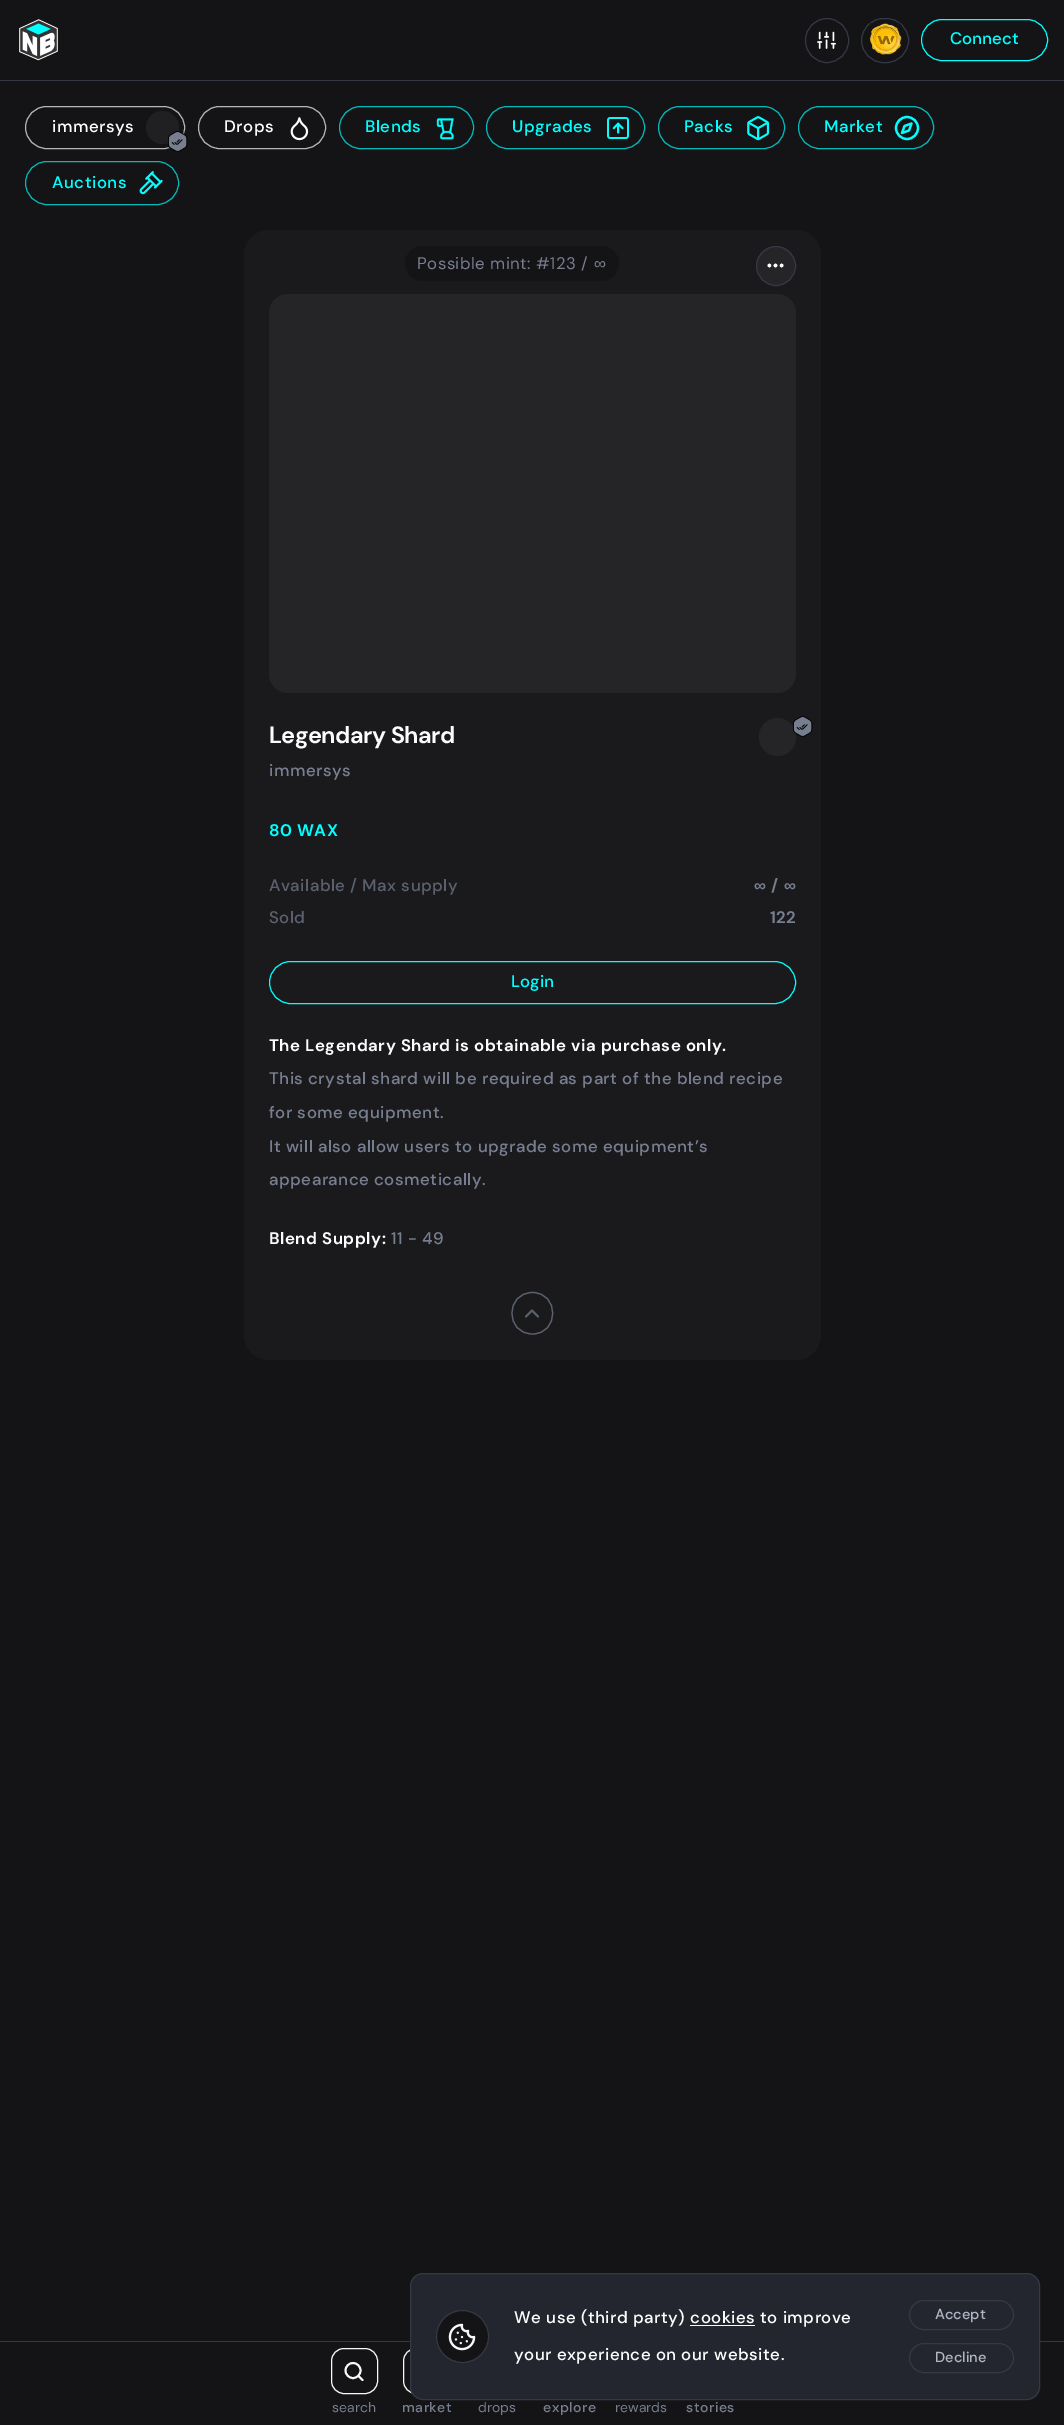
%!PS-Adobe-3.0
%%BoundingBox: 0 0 1064 2425
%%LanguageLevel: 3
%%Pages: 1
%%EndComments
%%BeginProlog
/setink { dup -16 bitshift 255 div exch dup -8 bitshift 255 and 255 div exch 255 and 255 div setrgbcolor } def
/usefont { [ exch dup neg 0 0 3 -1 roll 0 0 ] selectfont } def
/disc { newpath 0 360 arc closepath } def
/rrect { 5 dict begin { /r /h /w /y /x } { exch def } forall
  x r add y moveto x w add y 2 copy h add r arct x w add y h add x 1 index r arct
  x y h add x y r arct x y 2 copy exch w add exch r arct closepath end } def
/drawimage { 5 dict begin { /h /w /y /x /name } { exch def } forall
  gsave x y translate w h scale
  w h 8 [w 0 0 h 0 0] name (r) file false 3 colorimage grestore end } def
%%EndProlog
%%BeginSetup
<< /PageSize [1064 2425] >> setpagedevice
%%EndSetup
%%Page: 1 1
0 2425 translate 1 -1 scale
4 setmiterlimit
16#141416 setink
0 0 1064 2425 rectfill
16#353945 setink
0 80 1064 1 rectfill
(img1.raw) 19 19 39 42 drawimage
805.5 18.5 43 44 21.5 rrect stroke
(img2.raw) 817 31 19 18 drawimage
861.5 18.5 47 44 22 rrect stroke
(img3.raw) 870 23 32 32 drawimage
16#00FFFF setink
921.5 19.5 126 41 20.5 rrect stroke
/DMSans-Medium 16.8 usefont
950 44 moveto (Connect) show
16#B6B6B8 setink
25.5 106.5 159 42 21 rrect stroke
16#FCFCFD setink
52 132 moveto 0.5 0 (immersys) ashow
16#202022 setink
162.5 127.5 16.5 disc fill
(img4.raw) 168 131 20 21 drawimage
16#B6B6B8 setink
198.5 106.5 127 42 21 rrect stroke
16#FCFCFD setink
224 132 moveto 0.5 0 (Drops) ashow
(img5.raw) 290 117 19 24 drawimage
16#06B9B9 setink
339.5 106.5 134 42 21 rrect stroke
16#00FFFF setink
365 132 moveto 0.5 0 (Blends) ashow
(img6.raw) 436 118 18 22 drawimage
16#06B9B9 setink
486.5 106.5 158 42 21 rrect stroke
16#00FFFF setink
512 132 moveto 0.5 0 (Upgrades) ashow
(img7.raw) 607 117 22 22 drawimage
16#06B9B9 setink
658.5 106.5 126 42 21 rrect stroke
16#00FFFF setink
684 132 moveto 0.5 0 (Packs) ashow
(img8.raw) 747 116 23 25 drawimage
16#06B9B9 setink
798.5 106.5 135 42 21 rrect stroke
16#00FFFF setink
824 132 moveto 0.5 0 (Market) ashow
2.2 setlinewidth
907 128 11 disc stroke
1 setlinecap
1 setlinejoin
911.5 123.5 moveto 909 130.5 lineto 902 133 lineto 904.5 126 lineto closepath stroke
16#06B9B9 setink
1 setlinewidth
0 setlinecap
0 setlinejoin
25.5 161.5 153 43 21.5 rrect stroke
16#00FFFF setink
52 188 moveto 0.5 0 (Auctions) ashow
(img9.raw) 139 171 24 24 drawimage
16#1A1A1D setink
244 230 577 1130 25 rrect fill
16#141416 setink
405 246 214 35 17.5 rrect fill
/DMSans-Regular 16.8 usefont
16#777E90 setink
417 269 moveto 0.5 0 (Possible mint: #123 /) ashow
/LiberationSans-Regular 16.8 usefont
594 269 moveto 0.5 0 (∞) ashow
16#252528 setink
776 266 19.5 disc gsave fill grestore
16#353945 setink
stroke
16#FCFCFD setink
1.7 setlinewidth
775.5 265.5 0.9 disc stroke
781.6 265.5 0.9 disc stroke
769.4 265.5 0.9 disc stroke
16#252528 setink
269 294 527 399 19 rrect fill
/DMSans-Bold 23.5 usefont
16#FCFCFD setink
269 743 moveto -0.5 0 (Legendary Shard) ashow
16#252528 setink
759 718 37 38 18.5 rrect fill
(img10.raw) 793 716 20 21 drawimage
/DMSans-Medium 16.8 usefont
16#777E90 setink
269 776 moveto 0.5 0 (immersys) ashow
/DMSans-Bold 16.8 usefont
16#00FFFF setink
269 836 moveto 0.5 0 (80 WAX) ashow
/DMSans-Medium 16.8 usefont
16#5B606E setink
269 891 moveto 0.5 0 (Available / Max supply) ashow
/LiberationSans-Bold 16.8 usefont
16#777E90 setink
754 891 moveto 0.5 0 (∞) ashow
/DMSans-Bold 16.8 usefont
771 891 moveto 0.5 0 (/) ashow
/LiberationSans-Bold 16.8 usefont
784 891 moveto 0.5 0 (∞) ashow
/DMSans-Medium 16.8 usefont
16#5B606E setink
269 923 moveto 0.5 0 (Sold) ashow
/DMSans-Bold 16.8 usefont
16#777E90 setink
770 923 moveto 0.5 0 (122) ashow
16#00FFFF setink
1 setlinewidth
269.5 961.5 526 42 21 rrect stroke
/DMSans-Medium 16.8 usefont
511 987 moveto (Login) show
/DMSans-Bold 16.8 usefont
16#FCFCFD setink
269 1051 moveto 0.5 0 (The Legendary Shard is obtainable via purchase only.) ashow
/DMSans-Medium 16.8 usefont
16#777E90 setink
269 1084 moveto 0.5 0 (This crystal shard will be required as part of the blend recipe) ashow
269 1118 moveto 0.5 0 (for some equipment.) ashow
269 1152 moveto 0.5 0 (It will also allow users to upgrade some equipment’s) ashow
269 1185 moveto 0.5 0 (appearance cosmetically.) ashow
/DMSans-Bold 16.8 usefont
16#FCFCFD setink
269 1244 moveto 0.5 0 (Blend Supply:) ashow
/DMSans-Medium 16.8 usefont
16#777E90 setink
391 1244 moveto 0.5 0 (11 - 49) ashow
16#5B606E setink
1.2 setlinewidth
532.5 1334 moveto 505 1334 505 1292.5 532.5 1292.5 curveto 559.5 1292.5 559.5 1334 532.5 1334 curveto closepath stroke
2 setlinewidth
1 setlinecap
1 setlinejoin
538 1316.5 moveto 532 1310.5 lineto 526 1316.5 lineto stroke
16#353945 setink
0 2341 1064 1 rectfill
16#F8F8F9 setink
1 setlinewidth
0 setlinecap
0 setlinejoin
403.5 2348.5 45 45 12.5 rrect stroke
16#23262F setink
410.5 2273.5 629 126 12.5 rrect gsave fill grestore
16#353945 setink
stroke
16#141416 setink
462.5 2336.5 26 disc gsave fill grestore
16#353945 setink
stroke
(img11.raw) 448 2323 28 28 drawimage
16#FCFCFD setink
514 2323 moveto 0.5 0 (We use \(third party\) cookies to improve) ashow
16#F8F8F9 setink
690 2325 65 1 rectfill
16#FCFCFD setink
514 2360 moveto 0.5 0 (your experience on our website.) ashow
16#353945 setink
909.5 2300.5 104 29 14.5 rrect stroke
/DMSans-Medium 14.5 usefont
16#B1B5C3 setink
935 2319 moveto (Accept) show
16#353945 setink
909.5 2343.5 104 29 14.5 rrect stroke
16#B1B5C3 setink
935 2362 moveto (Decline) show
16#F8F8F9 setink
331.5 2348.5 46 45 12.5 rrect stroke
1.9 setlinewidth
353 2370.5 7.5 disc stroke
1 setlinecap
1 setlinejoin
362.5 2380 moveto 358.5 2376 lineto stroke
/DMSans-Regular 14 usefont
16#777E90 setink
332 2412 moveto (search) show
/DMSans-Medium 14 usefont
402 2412 moveto 0.5 0 (market) ashow
/DMSans-Regular 14 usefont
478 2412 moveto (drops) show
/DMSans-Medium 14 usefont
543 2412 moveto 0.5 0 (explore) ashow
/DMSans-Regular 14 usefont
615 2412 moveto (rewards) show
/DMSans-Medium 14 usefont
686 2412 moveto 0.5 0 (stories) ashow
showpage
%%EOF
